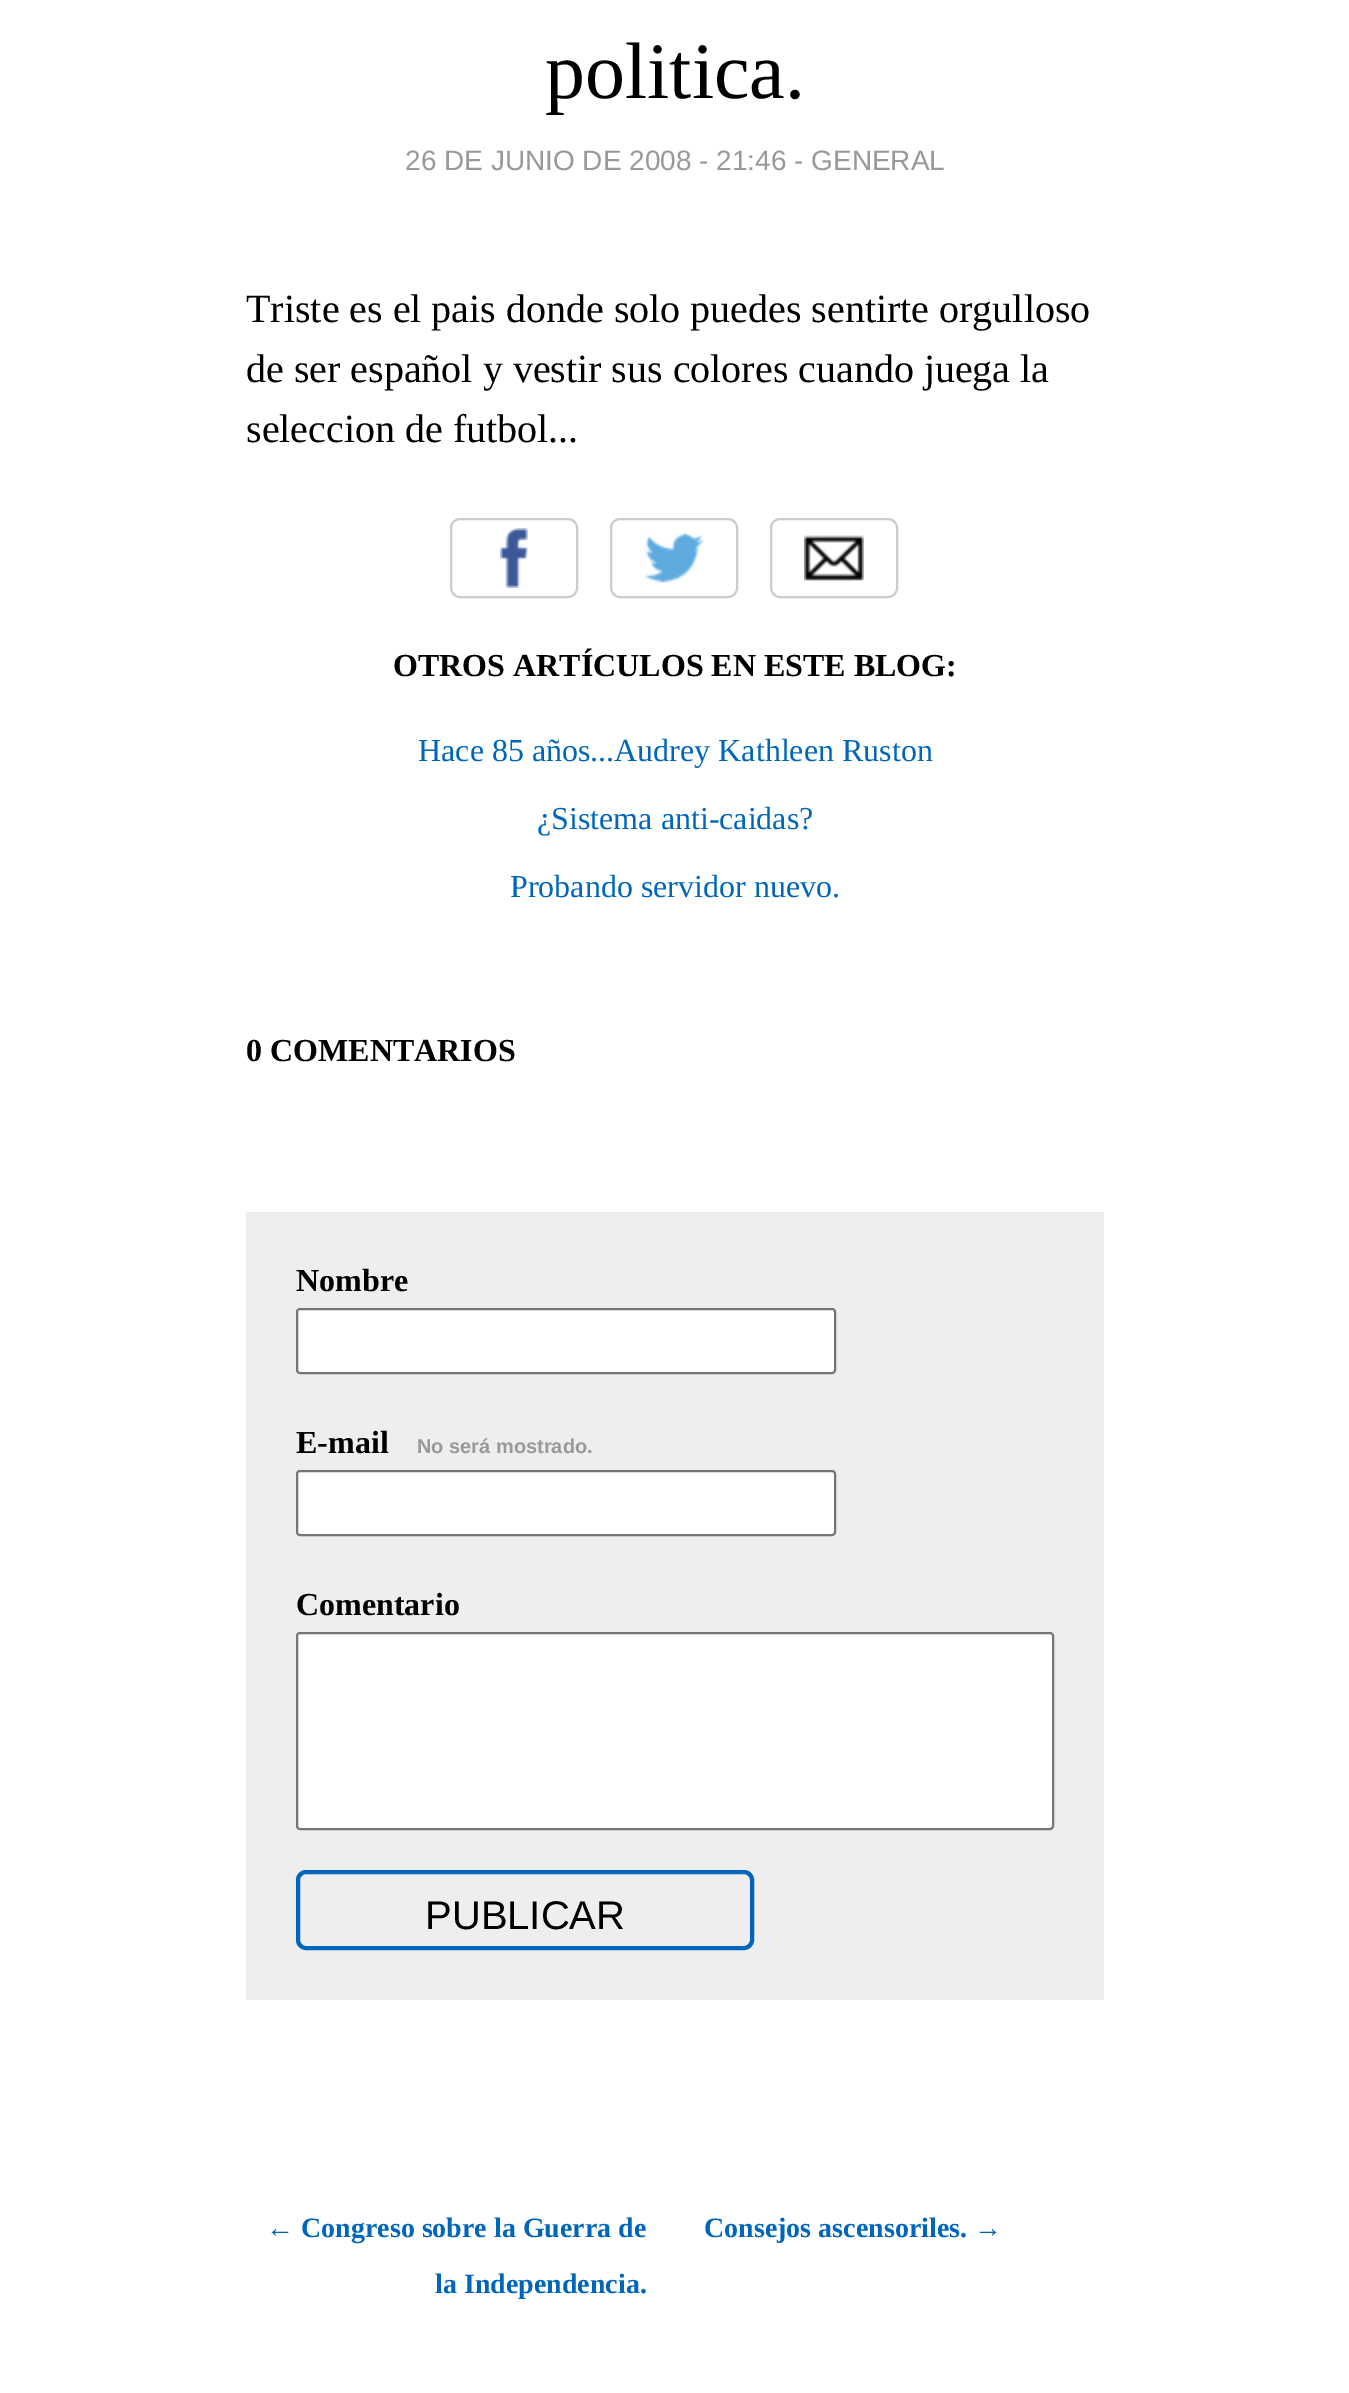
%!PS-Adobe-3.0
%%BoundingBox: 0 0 1349 2393
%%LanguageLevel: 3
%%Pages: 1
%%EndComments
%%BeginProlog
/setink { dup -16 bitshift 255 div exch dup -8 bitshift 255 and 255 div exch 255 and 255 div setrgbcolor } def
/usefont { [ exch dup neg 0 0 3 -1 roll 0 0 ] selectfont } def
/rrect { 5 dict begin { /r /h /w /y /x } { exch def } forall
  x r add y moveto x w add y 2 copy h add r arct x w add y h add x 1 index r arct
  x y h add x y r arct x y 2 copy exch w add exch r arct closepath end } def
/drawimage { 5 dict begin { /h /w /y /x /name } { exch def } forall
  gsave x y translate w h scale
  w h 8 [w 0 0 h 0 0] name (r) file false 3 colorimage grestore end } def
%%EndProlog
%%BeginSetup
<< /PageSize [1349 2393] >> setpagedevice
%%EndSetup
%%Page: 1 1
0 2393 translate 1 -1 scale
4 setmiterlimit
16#FFFFFF setink
0 0 1349 2393 rectfill
/LiberationSerif-Regular 80 usefont
16#000000 setink
545 98 moveto (politica.) show
/LiberationSans-Regular 28 usefont
16#999999 setink
405 170 moveto (26 DE JUNIO DE 2008 - 21:46 - GENERAL) show
/LiberationSerif-Regular 40 usefont
16#000000 setink
[
    [(Triste es el pais donde solo puedes sentirte orgulloso) 246 322]
    [(de ser español y vestir sus colores cuando juega la) 246 382]
    [(seleccion de futbol...) 246 442]
] { aload pop moveto show } forall
(img1.raw) 500 528 28 60 drawimage
16#CCCCCC setink
2 setlinewidth
451 519 126 78 9 rrect stroke
(img2.raw) 644 533 60 50 drawimage
611 519 126 78 9 rrect stroke
(img3.raw) 804 535 60 46 drawimage
771 519 126 78 9 rrect stroke
/LiberationSerif-Bold 32 usefont
16#000000 setink
393 676 moveto (OTROS ARTÍCULOS EN ESTE BLOG:) show
/LiberationSerif-Regular 32 usefont
16#0066BB setink
[
    [(Hace 85 años...Audrey Kathleen Ruston) 418 761]
    [(¿Sistema anti-caidas?) 537 829]
    [(Probando servidor nuevo.) 510 897]
] { aload pop moveto show } forall
/LiberationSerif-Bold 32 usefont
16#000000 setink
246 1061 moveto (0 COMENTARIOS) show
16#EEEEEE setink
246 1212 858 788 rectfill
16#000000 setink
296 1291 moveto (Nombre) show
16#FFFFFF setink
297 1309 538 64 3 rrect gsave fill grestore
16#767676 setink
stroke
16#000000 setink
296 1453 moveto (E-mail) show
/LiberationSans-Bold 20 usefont
16#999999 setink
417 1453 moveto (No será mostrado.) show
16#FFFFFF setink
297 1471 538 64 3 rrect gsave fill grestore
16#767676 setink
stroke
/LiberationSerif-Bold 32 usefont
16#000000 setink
296 1615 moveto (Comentario) show
16#FFFFFF setink
297 1633 756 196 3 rrect gsave fill grestore
16#767676 setink
stroke
16#0066BB setink
4 setlinewidth
298 1872 454 76 8 rrect stroke
/LiberationSans-Regular 40 usefont
16#000000 setink
425 1929 moveto (PUBLICAR) show
/LiberationSerif-Bold 28 usefont
16#0066BB setink
[
    [(← Congreso sobre la Guerra de) 266 2237]
    [(la Independencia.) 435 2293]
    [(Consejos ascensoriles. →) 704 2237]
] { aload pop moveto show } forall
showpage
%%EOF
